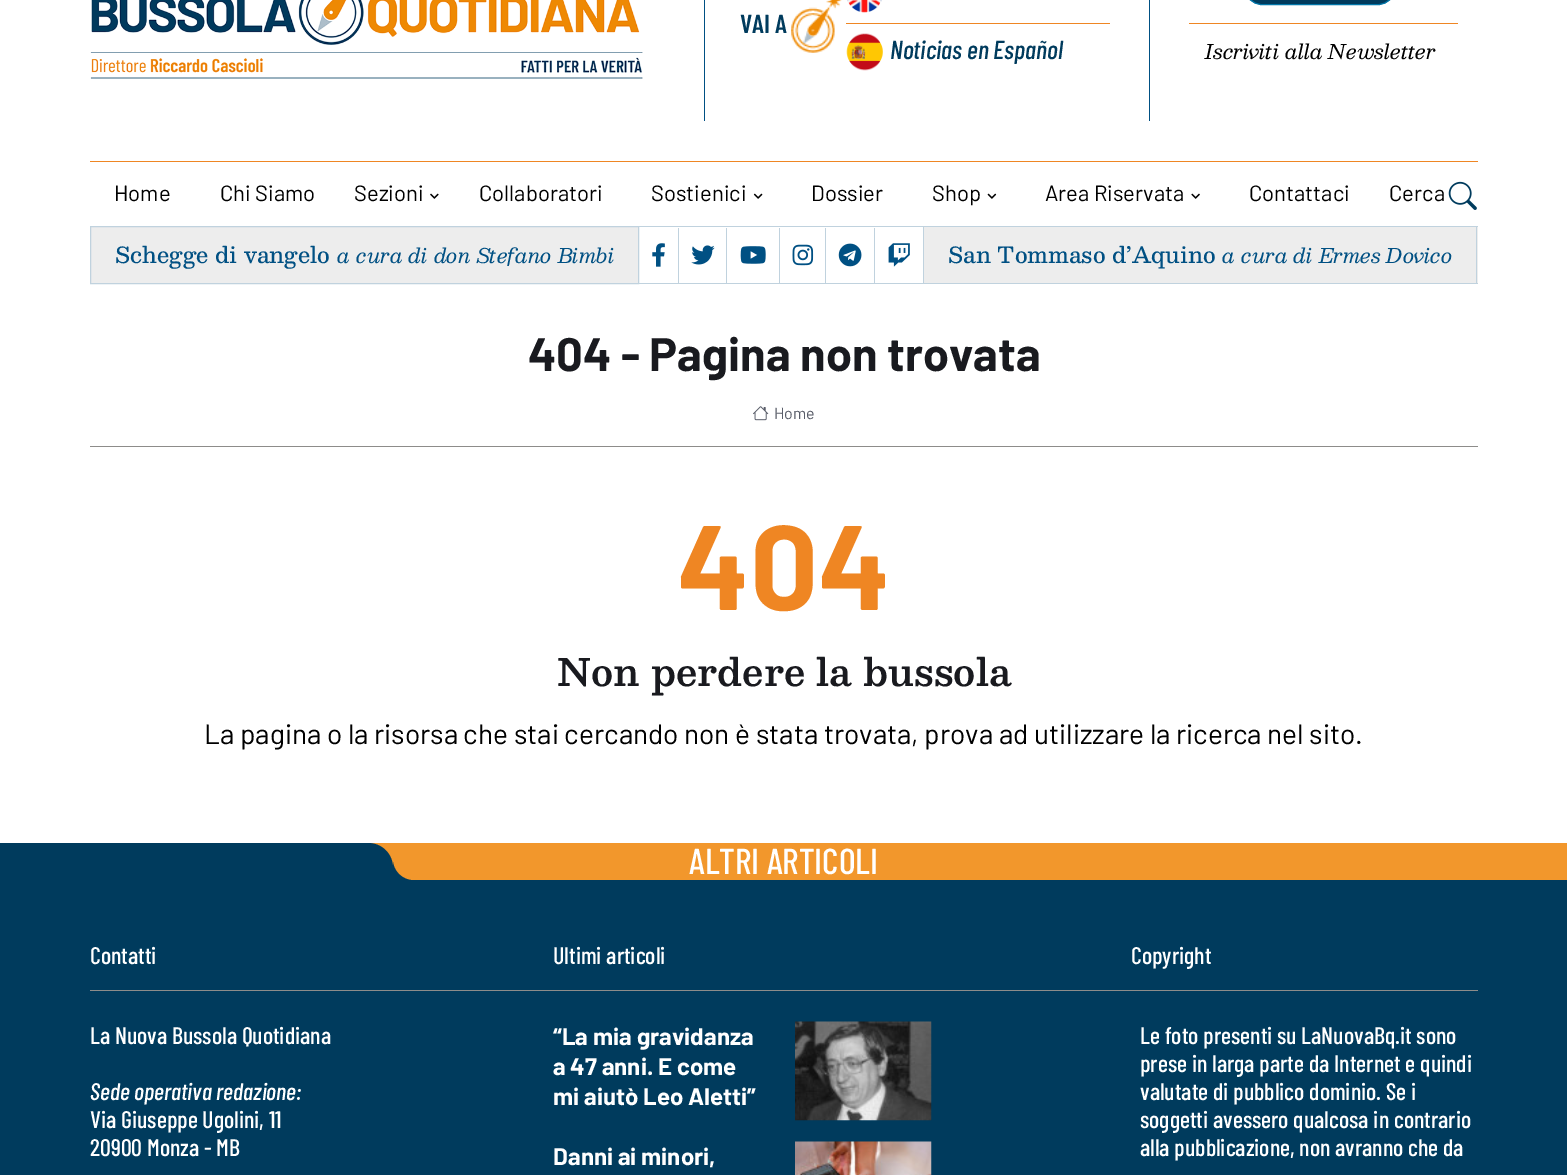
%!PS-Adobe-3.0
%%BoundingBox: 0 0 1567 1175
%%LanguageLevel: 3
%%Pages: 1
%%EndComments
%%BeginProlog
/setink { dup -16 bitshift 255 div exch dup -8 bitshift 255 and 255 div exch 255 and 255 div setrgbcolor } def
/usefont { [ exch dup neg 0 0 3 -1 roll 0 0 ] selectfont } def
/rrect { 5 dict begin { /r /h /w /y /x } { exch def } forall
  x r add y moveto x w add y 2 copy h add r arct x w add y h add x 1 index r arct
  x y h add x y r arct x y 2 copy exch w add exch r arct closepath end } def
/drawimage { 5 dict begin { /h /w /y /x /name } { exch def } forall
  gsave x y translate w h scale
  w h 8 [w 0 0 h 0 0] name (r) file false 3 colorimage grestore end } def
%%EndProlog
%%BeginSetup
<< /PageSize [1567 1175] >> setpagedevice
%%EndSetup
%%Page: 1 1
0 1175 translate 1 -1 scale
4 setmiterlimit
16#FFFFFF setink
0 0 1567 1175 rectfill
(img1.raw) 90 0 553 79 drawimage
16#005083 setink
1149 0 1 121 rectfill
(img2.raw) 847 0 35 13 drawimage
704 0 1 121 rectfill
(img3.raw) 791 0 51 53 drawimage
/BarlowCondensed-SemiBold 26 usefont
16#003B5D setink
740 33 moveto (VAI A) show
16#EF8623 setink
846 23 264 1 rectfill
(img4.raw) 846 33 37 38 drawimage
/BarlowCondensed-MediumItalic 26 usefont
16#003B5D setink
890 59 moveto (Noticias en Español) show
1244.5 -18.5 151 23 17.5 rrect gsave fill grestore
16#0076A9 setink
stroke
16#EF8623 setink
1189 23 269 1 rectfill
/Besley-Italic 20 usefont
16#000000 setink
1205 59 moveto (Iscriviti alla Newsletter) show
16#EF8623 setink
90 161 1388 1 rectfill
/Barlow-Regular 22 usefont
16#000000 setink
[
    [(Home) 114 201]
    [(Chi Siamo) 220 201]
    [(Sezioni) 354 201]
] { aload pop moveto show } forall
(img5.raw) 430 193 9 6 drawimage
479 201 moveto (Collaboratori) show
651 201 moveto (Sostienici) show
(img6.raw) 753 193 10 6 drawimage
811 201 moveto (Dossier) show
932 201 moveto (Shop) show
(img7.raw) 987 193 10 6 drawimage
1045 201 moveto (Area Riservata) show
(img8.raw) 1191 193 9 6 drawimage
1249 201 moveto (Contattaci) show
1389 201 moveto (Cerca) show
(img9.raw) 1448 181 29 29 drawimage
16#EDEDED setink
90.5 226.5 moveto 638.5 226.5 lineto 638.5 283.5 lineto 90.5 283.5 lineto closepath gsave fill grestore
16#C0D2DE setink
stroke
/Besley-Medium 22 usefont
16#005083 setink
115 263 moveto (Schegge di vangelo) show
/Besley-Italic 20 usefont
337 263 moveto (a cura di don Stefano Bimbi) show
[
    [639 226 839 1 16#C0D2DE]
    [923 226 1 58 16#C0D2DE]
    [639 283 285 1 16#C0D2DE]
    [678 228 1 55 16#C0D2DE]
] { aload pop setink rectfill } forall
(img10.raw) 652 243 13 24 drawimage
726 228 1 55 rectfill
(img11.raw) 691 245 24 20 drawimage
779 228 1 55 rectfill
(img12.raw) 740 246 26 18 drawimage
825 228 1 55 rectfill
(img13.raw) 792 244 22 22 drawimage
874 228 1 55 rectfill
(img14.raw) 838 243 24 24 drawimage
(img15.raw) 888 243 22 24 drawimage
[
    [924 227 554 56 16#EDEDED]
    [1476 226 1 58 16#C0D2DE]
    [924 283 554 1 16#C0D2DE]
] { aload pop setink rectfill } forall
/Besley-Medium 22 usefont
16#005083 setink
948 263 moveto (San Tommaso d’Aquino) show
/Besley-Italic 20 usefont
1222 263 moveto (a cura di Ermes Dovico) show
16#8D8C8A setink
90 446 1388 1 rectfill
/Barlow-Bold 46.9 usefont
16#191A1F setink
528 371 moveto (404 - Pagina non trovata) show
(img16.raw) 753 406 16 15 drawimage
/Barlow-Regular 16 usefont
16#595D69 setink
774 419 moveto (Home) show
/Barlow-Bold 120 usefont
16#EF8623 setink
677 610 moveto (404) show
/Besley-SemiBold 37.5 usefont
16#191A1F setink
557 686 moveto (Non perdere la bussola) show
/Barlow-Regular 28 usefont
16#000000 setink
204 744 moveto (La pagina o la risorsa che stai cercando non è stata trovata, prova ad utilizzare la ricerca nel sito.) show
16#003B5D setink
0 880 1567 295 rectfill
16#F2972C setink
368 843 25 25 rectfill
16#003B5D setink
0 843 moveto 368 843 lineto 382 843 393 854 393 868 curveto 393 880 lineto 0 880 lineto closepath fill
393 859 21 21 rectfill
16#F2972C setink
393 843 moveto 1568 843 lineto 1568 880 lineto 414 880 lineto 402.5 880 393 870.5 393 859 curveto closepath fill
/BarlowCondensed-Medium 36 usefont
16#FFFFFF setink
689 874 moveto (ALTRI ARTICOLI) show
/BarlowCondensed-Medium 24 usefont
90 964 moveto (Contatti) show
16#8D8C8A setink
90 990 1388 1 rectfill
16#FFFFFF setink
90 1044 moveto (La Nuova Bussola Quotidiana) show
/BarlowCondensed-MediumItalic 24 usefont
90 1100 moveto (Sede operativa redazione:) show
/BarlowCondensed-Medium 24 usefont
[
    [(Via Giuseppe Ugolini, 11) 90 1128]
    [(20900 Monza - MB) 90 1156]
    [(Ultimi articoli) 553 964]
] { aload pop moveto show } forall
/Barlow-Bold 24 usefont
[
    [(“La mia gravidanza) 553 1045]
    [(a 47 anni. E come) 553 1075]
    [(mi aiutò Leo Aletti”) 553 1105]
] { aload pop moveto show } forall
(img17.raw) 795 1021 137 100 drawimage
553 1165 moveto (Danni ai minori,) show
(img18.raw) 795 1141 137 34 drawimage
/BarlowCondensed-Medium 24 usefont
[
    [(Copyright) 1131 964]
    [(Le foto presenti su LaNuovaBq.it sono) 1140 1044]
    [(prese in larga parte da Internet e quindi) 1140 1072]
    [(valutate di pubblico dominio. Se i) 1140 1100]
    [(soggetti avessero qualcosa in contrario) 1140 1128]
    [(alla pubblicazione, non avranno che da) 1140 1156]
] { aload pop moveto show } forall
showpage
%%EOF
